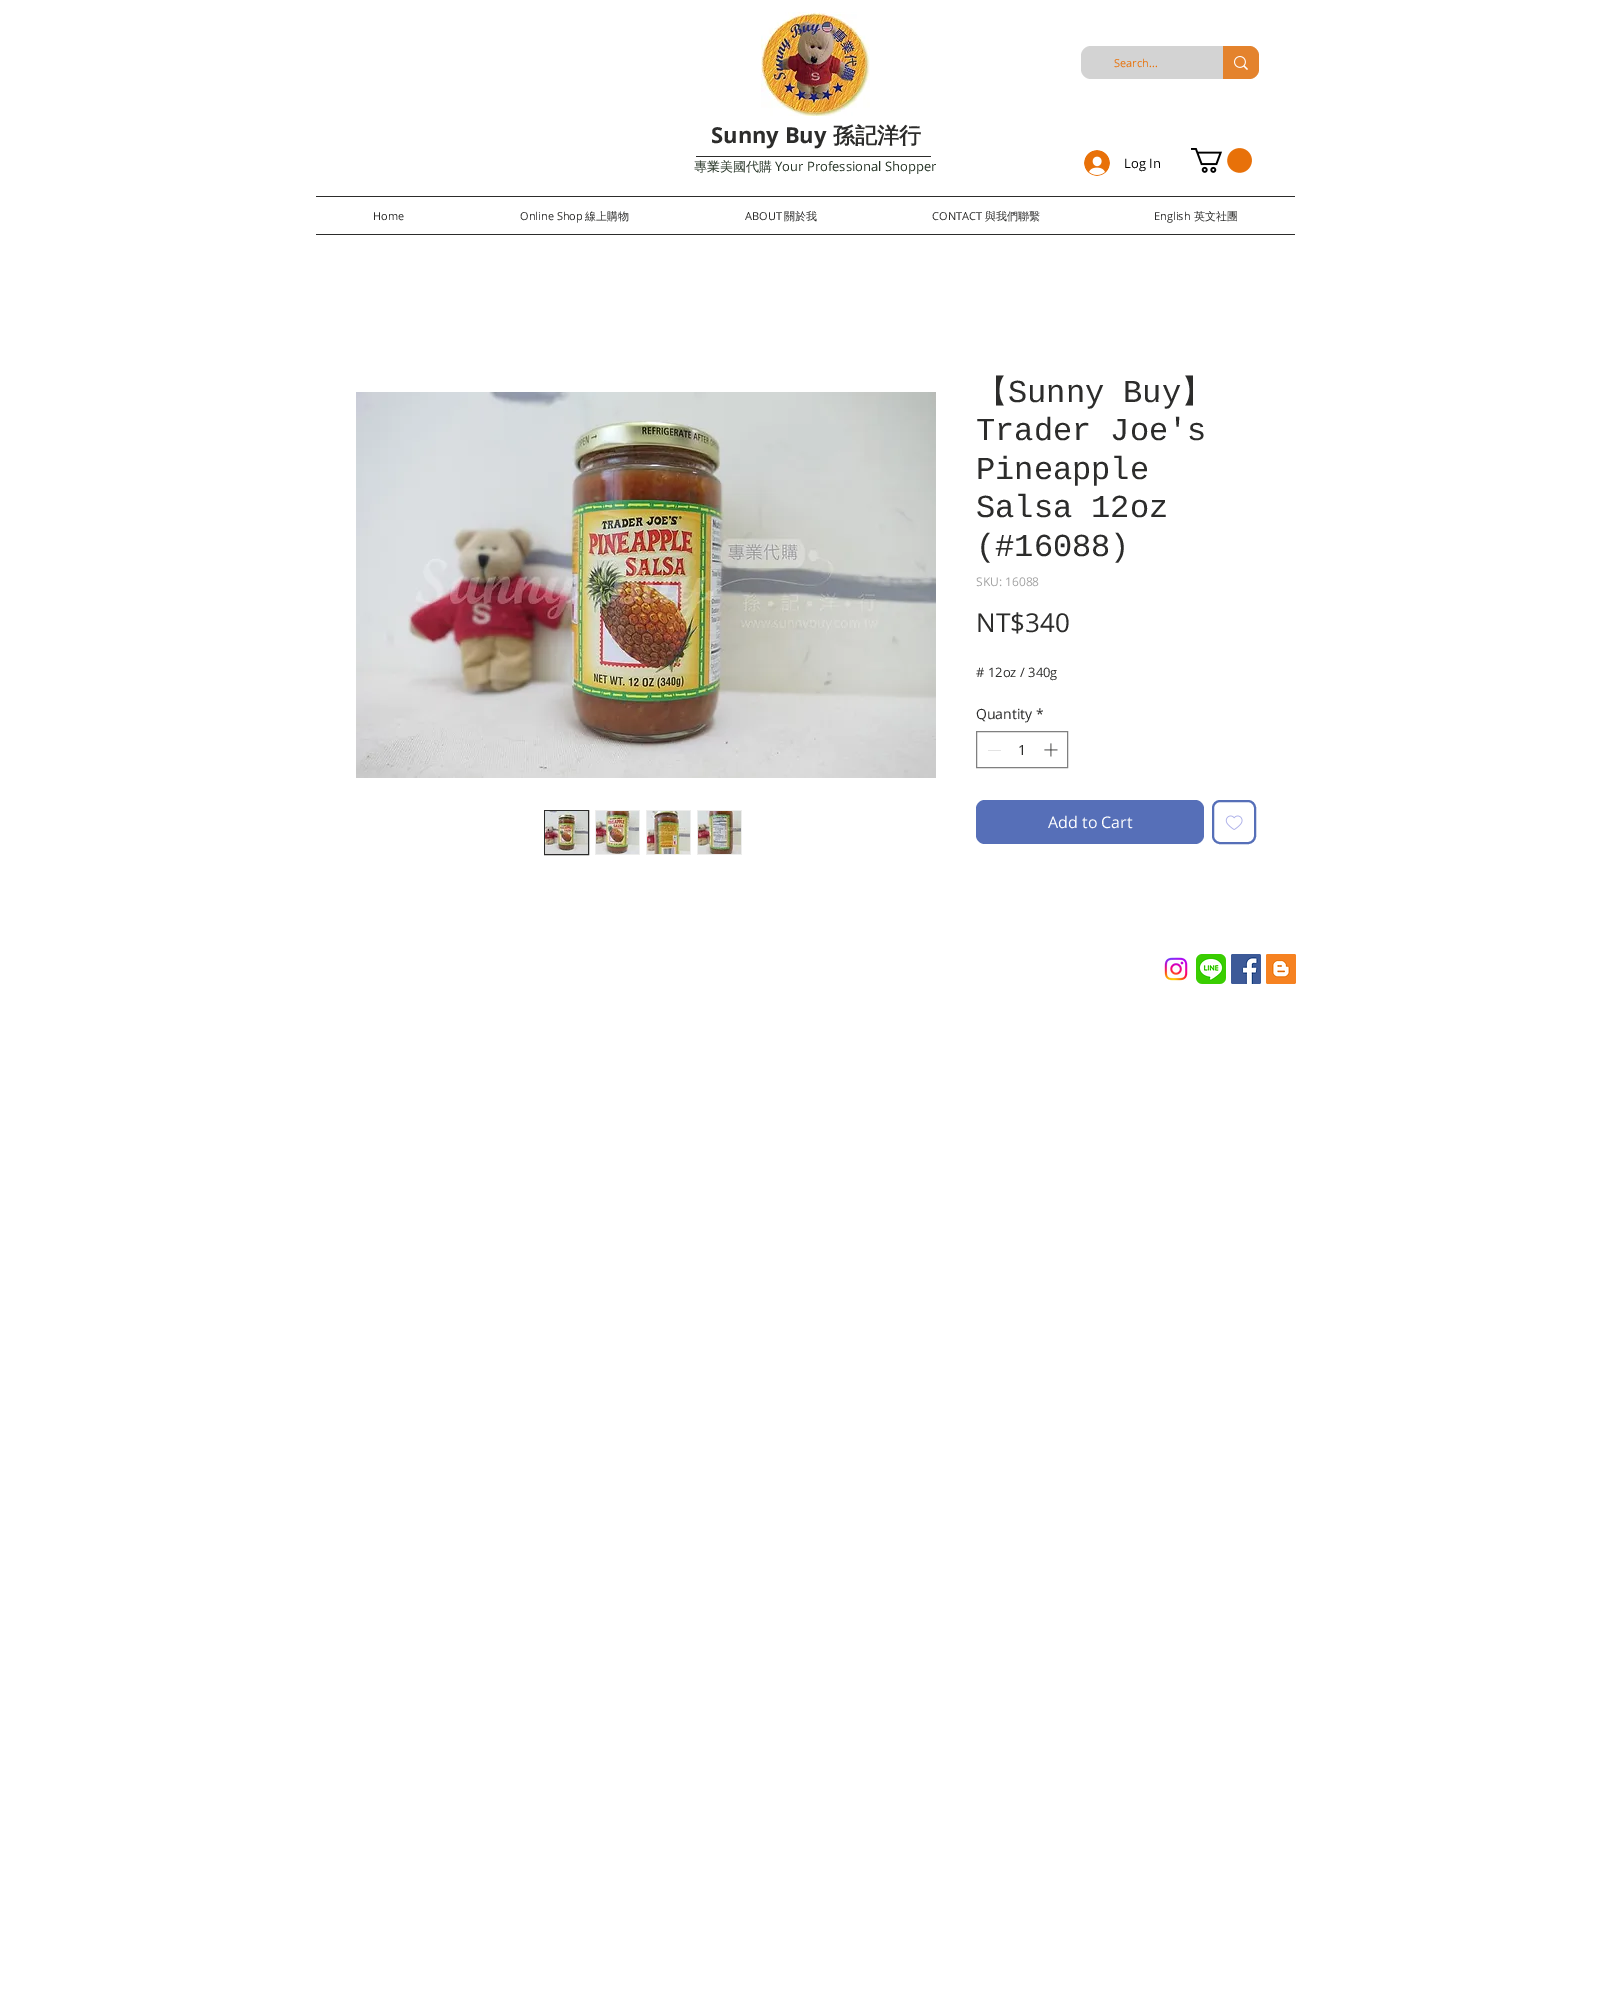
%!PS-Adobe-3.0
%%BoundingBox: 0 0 1612 2001
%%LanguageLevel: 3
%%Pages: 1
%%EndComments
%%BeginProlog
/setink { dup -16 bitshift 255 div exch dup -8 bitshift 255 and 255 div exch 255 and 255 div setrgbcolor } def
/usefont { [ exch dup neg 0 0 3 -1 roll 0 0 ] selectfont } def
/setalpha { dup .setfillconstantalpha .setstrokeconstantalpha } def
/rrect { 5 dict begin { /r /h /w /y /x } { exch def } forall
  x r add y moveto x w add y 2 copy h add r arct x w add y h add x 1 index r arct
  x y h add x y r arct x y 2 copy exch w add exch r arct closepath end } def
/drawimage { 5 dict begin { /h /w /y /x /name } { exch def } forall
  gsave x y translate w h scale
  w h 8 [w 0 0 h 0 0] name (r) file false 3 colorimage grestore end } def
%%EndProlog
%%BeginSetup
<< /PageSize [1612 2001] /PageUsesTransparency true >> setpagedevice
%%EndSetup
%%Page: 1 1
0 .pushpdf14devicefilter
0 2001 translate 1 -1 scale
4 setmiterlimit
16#FFFFFF setink
0 0 1612 2001 rectfill
(img1.raw) 761 12 109 104 drawimage
16#D3D3D3 setink
1081 46 178 33 10 rrect fill
/OpenSans-Regular 11 usefont
16#E87109 setink
1114 67 moveto (Search...) show
0.82 setalpha
1223 46 moveto 1249 46 lineto 1254.5 46 1259 50.5 1259 56 curveto 1259 69 lineto 1259 74.5 1254.5 79 1249 79 curveto 1223 79 lineto closepath fill
1 setalpha
(img2.raw) 1234 56 14 14 drawimage
/OpenSans-Bold 22 usefont
16#2C2C2B setink
711 143 moveto (Sunny Buy) show
/WenQuanYiZenHei-Bold 22 usefont
833 143 moveto (孫記洋行) show
696 156 235 1 rectfill
(img3.raw) 1191 148 61 25 drawimage
/WenQuanYiZenHei-Medium 13 usefont
16#253325 setink
694 171 moveto (專業美國代購) show
/OpenSans-Regular 13 usefont
775 171 moveto (Your Professional Shopper) show
(img4.raw) 1084 150 26 26 drawimage
16#000000 setink
1124 168 moveto (Log In) show
16#2C2C2B setink
316 196 979 1 rectfill
316 234 979 1 rectfill
/OpenSans-Regular 11 usefont
373 220 moveto (Home) show
520 220 moveto (Online Shop) show
/WenQuanYiZenHei-Medium 11 usefont
585 220 moveto (線上購物) show
/OpenSans-Regular 11 usefont
745 220 moveto (ABOUT) show
/WenQuanYiZenHei-Medium 11 usefont
784 220 moveto (關於我) show
/OpenSans-Regular 11 usefont
932 220 moveto (CONTACT) show
/WenQuanYiZenHei-Medium 11 usefont
985 220 moveto (與我們聯繫) show
/OpenSans-Regular 11 usefont
1154 220 moveto (English) show
/WenQuanYiZenHei-Medium 11 usefont
1194 220 moveto (英文社團) show
(img5.raw) 356 392 580 386 drawimage
544.5 810.5 44 44 rectstroke
(img6.raw) 545 811 43 43 drawimage
16#EDEDEC setink
595 810 45 45 rectfill
(img7.raw) 596 811 43 43 drawimage
646 810 45 45 rectfill
(img8.raw) 647 811 43 43 drawimage
697 810 45 45 rectfill
(img9.raw) 698 811 43 43 drawimage
/WenQuanYiZenHei-Medium 32 usefont
16#2C2C2B setink
976 402 moveto (【) show
/LiberationMono-Regular 32 usefont
1008 402 moveto (Sunny Buy) show
/WenQuanYiZenHei-Medium 32 usefont
1181 402 moveto (】) show
/LiberationMono-Regular 32 usefont
[
    [(Trader Joe's) 976 440]
    [(Pineapple) 976 479]
    [(Salsa 12oz) 976 517]
    [(\(#16088\)) 976 556]
] { aload pop moveto show } forall
/OpenSans-Regular 12 usefont
16#A4A4A4 setink
976 586 moveto (SKU: 16088) show
/OpenSans-Regular 26 usefont
16#2C2C2B setink
976 632 moveto (NT$340) show
/OpenSans-Regular 13 usefont
976 677 moveto (# 12oz / 340g) show
/OpenSans-Regular 14 usefont
976 719 moveto (Quantity) show
1036 719 moveto (*) show
16#808080 setink
976.5 731.5 91 36 rectstroke
16#E3E3E3 setink
988 750 13 1 rectfill
16#2C2C2B setink
1018 755 moveto (1) show
(img10.raw) 1044 743 14 14 drawimage
16#566FB8 setink
976 800 228 44 9 rrect fill
/OpenSans-Regular 16 usefont
16#FFFFFF setink
1048 828 moveto (Add to Cart) show
16#566FB8 setink
2 setlinewidth
1213 801 42 42 7 rrect stroke
(img11.raw) 1225 815 18 15 drawimage
(img12.raw) 1164 957 24 24 drawimage
(img13.raw) 1196 954 30 30 drawimage
(img14.raw) 1231 954 30 30 drawimage
(img15.raw) 1266 954 30 30 drawimage
.poppdf14devicefilter showpage
%%EOF
